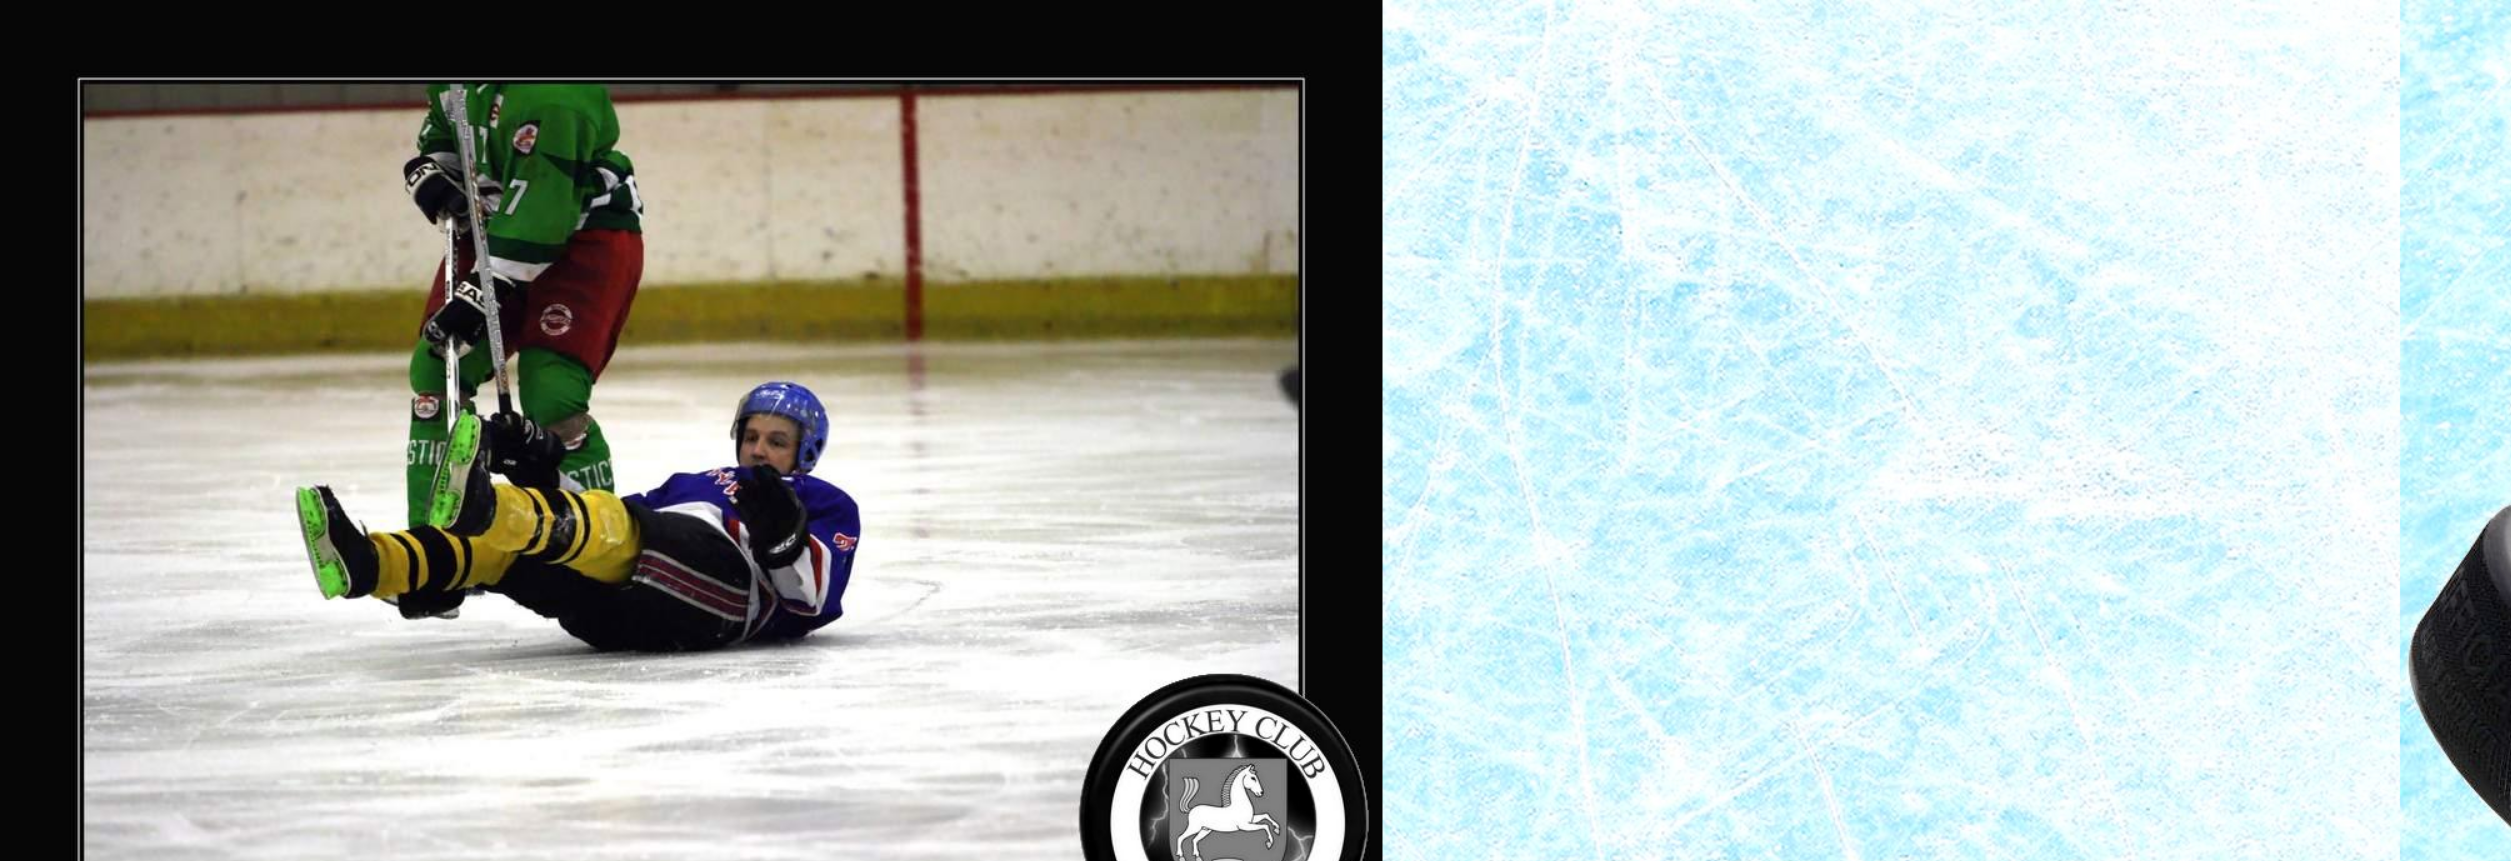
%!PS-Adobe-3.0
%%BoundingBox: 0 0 2511 861
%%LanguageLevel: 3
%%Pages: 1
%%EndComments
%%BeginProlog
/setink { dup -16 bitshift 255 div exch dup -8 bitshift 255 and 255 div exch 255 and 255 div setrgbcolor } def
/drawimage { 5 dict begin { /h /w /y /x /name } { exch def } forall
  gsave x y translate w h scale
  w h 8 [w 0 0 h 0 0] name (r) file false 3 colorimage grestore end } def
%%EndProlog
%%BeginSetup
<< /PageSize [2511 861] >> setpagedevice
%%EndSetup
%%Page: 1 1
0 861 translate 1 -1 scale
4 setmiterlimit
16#FFFFFF setink
0 0 2511 861 rectfill
(img1.raw) 1382 0 1129 861 drawimage
(img2.raw) 0 0 1383 861 drawimage
showpage
%%EOF
